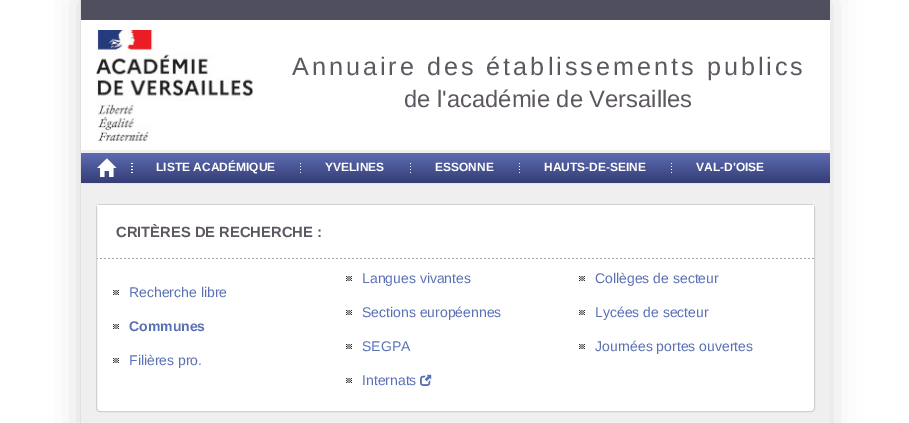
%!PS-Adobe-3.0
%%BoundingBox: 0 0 909 423
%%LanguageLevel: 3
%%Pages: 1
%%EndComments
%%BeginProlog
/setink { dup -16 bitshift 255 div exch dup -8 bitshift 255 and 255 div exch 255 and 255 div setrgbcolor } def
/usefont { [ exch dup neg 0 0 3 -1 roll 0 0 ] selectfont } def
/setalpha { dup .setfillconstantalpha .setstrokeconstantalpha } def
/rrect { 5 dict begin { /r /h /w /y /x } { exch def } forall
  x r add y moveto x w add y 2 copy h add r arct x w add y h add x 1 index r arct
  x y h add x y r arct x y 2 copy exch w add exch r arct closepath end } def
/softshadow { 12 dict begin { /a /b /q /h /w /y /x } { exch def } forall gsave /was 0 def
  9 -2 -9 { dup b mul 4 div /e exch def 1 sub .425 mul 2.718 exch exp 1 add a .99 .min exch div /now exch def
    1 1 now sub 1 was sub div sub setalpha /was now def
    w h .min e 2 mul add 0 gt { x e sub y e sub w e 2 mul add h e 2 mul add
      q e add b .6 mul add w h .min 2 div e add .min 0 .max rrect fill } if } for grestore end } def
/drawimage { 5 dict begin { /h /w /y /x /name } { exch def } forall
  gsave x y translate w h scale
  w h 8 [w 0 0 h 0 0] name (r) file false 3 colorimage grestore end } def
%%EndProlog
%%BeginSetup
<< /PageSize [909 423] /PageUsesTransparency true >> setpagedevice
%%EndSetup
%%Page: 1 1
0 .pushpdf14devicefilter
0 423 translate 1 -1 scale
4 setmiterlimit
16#FFFFFF setink
0 0 909 423 rectfill
16#D5D5D5 setink
80 0 750 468 0 15 1 softshadow
[
    [81 150 749 273 16#EFEFEF]
    [80 0 1 423 16#E0E0E1]
    [81 183 749 1 16#E5E5E5]
    [81 0 749 20 16#504F5D]
    [81 20 749 130 16#FFFFFF]
] { aload pop setink rectfill } forall
(img1.raw) 96 30 157 111 drawimage
/LiberationSans-Regular 25.2 usefont
16#5C5761 setink
292 75 moveto 3 0 (Annuaire des établissements publics) ashow
/LiberationSans-Regular 23.75 usefont
404 107 moveto (de l'académie de Versailles) show
gsave 81 153 moveto 830 153 lineto 830 183 lineto 81 183 lineto closepath clip newpath
<< /ShadingType 2 /ColorSpace /DeviceRGB /Coords [456 153 456 183] /Extend [true true] /Function << /FunctionType 2 /Domain [0 1] /C0 [0.365 0.424 0.694] /C1 [0.204 0.239 0.463] /N 1 >> >> shfill grestore
(img2.raw) 97 158 20 19 drawimage
(img3.raw) 131 163 2 10 drawimage
/LiberationSans-Bold 12 usefont
16#FFFFFF setink
156 171 moveto (LISTE ACADÉMIQUE) show
(img4.raw) 300 163 1 10 drawimage
325 171 moveto (YVELINES) show
(img4.raw) 410 163 1 10 drawimage
435 171 moveto (ESSONNE) show
(img4.raw) 519 163 1 10 drawimage
544 171 moveto (HAUTS-DE-SEINE) show
(img4.raw) 671 163 1 10 drawimage
696 171 moveto (VAL-D'OISE) show
96.5 204.5 718 207 3.5 rrect gsave fill grestore
16#D0D0D0 setink
stroke
16#FFFFFF setink
97 205 717 3 rectfill
(img5.raw) 97 258 717 1 drawimage
/LiberationSans-Bold 14.75 usefont
16#5C5761 setink
116 237 moveto (CRITÈRES DE RECHERCHE :) show
(img6.raw) 346 276 6 5 drawimage
/LiberationSans-Regular 14 usefont
16#5970B5 setink
362 283 moveto (Langues vivantes) show
(img7.raw) 579 276 6 5 drawimage
595 283 moveto (Collèges de secteur) show
(img6.raw) 113 290 6 5 drawimage
129 297 moveto (Recherche libre) show
(img6.raw) 346 310 6 5 drawimage
362 317 moveto (Sections européennes) show
(img7.raw) 579 310 6 5 drawimage
595 317 moveto (Lycées de secteur) show
(img6.raw) 113 324 6 5 drawimage
/LiberationSans-Bold 14 usefont
129 331 moveto (Communes) show
(img6.raw) 346 344 6 5 drawimage
/LiberationSans-Regular 14 usefont
362 351 moveto (SEGPA) show
(img7.raw) 579 344 6 5 drawimage
595 351 moveto (Journées portes ouvertes) show
(img6.raw) 113 358 6 5 drawimage
129 365 moveto (Filières pro.) show
(img6.raw) 346 378 6 5 drawimage
362 385 moveto (Internats) show
(img8.raw) 420 374 12 12 drawimage
.poppdf14devicefilter showpage
%%EOF
